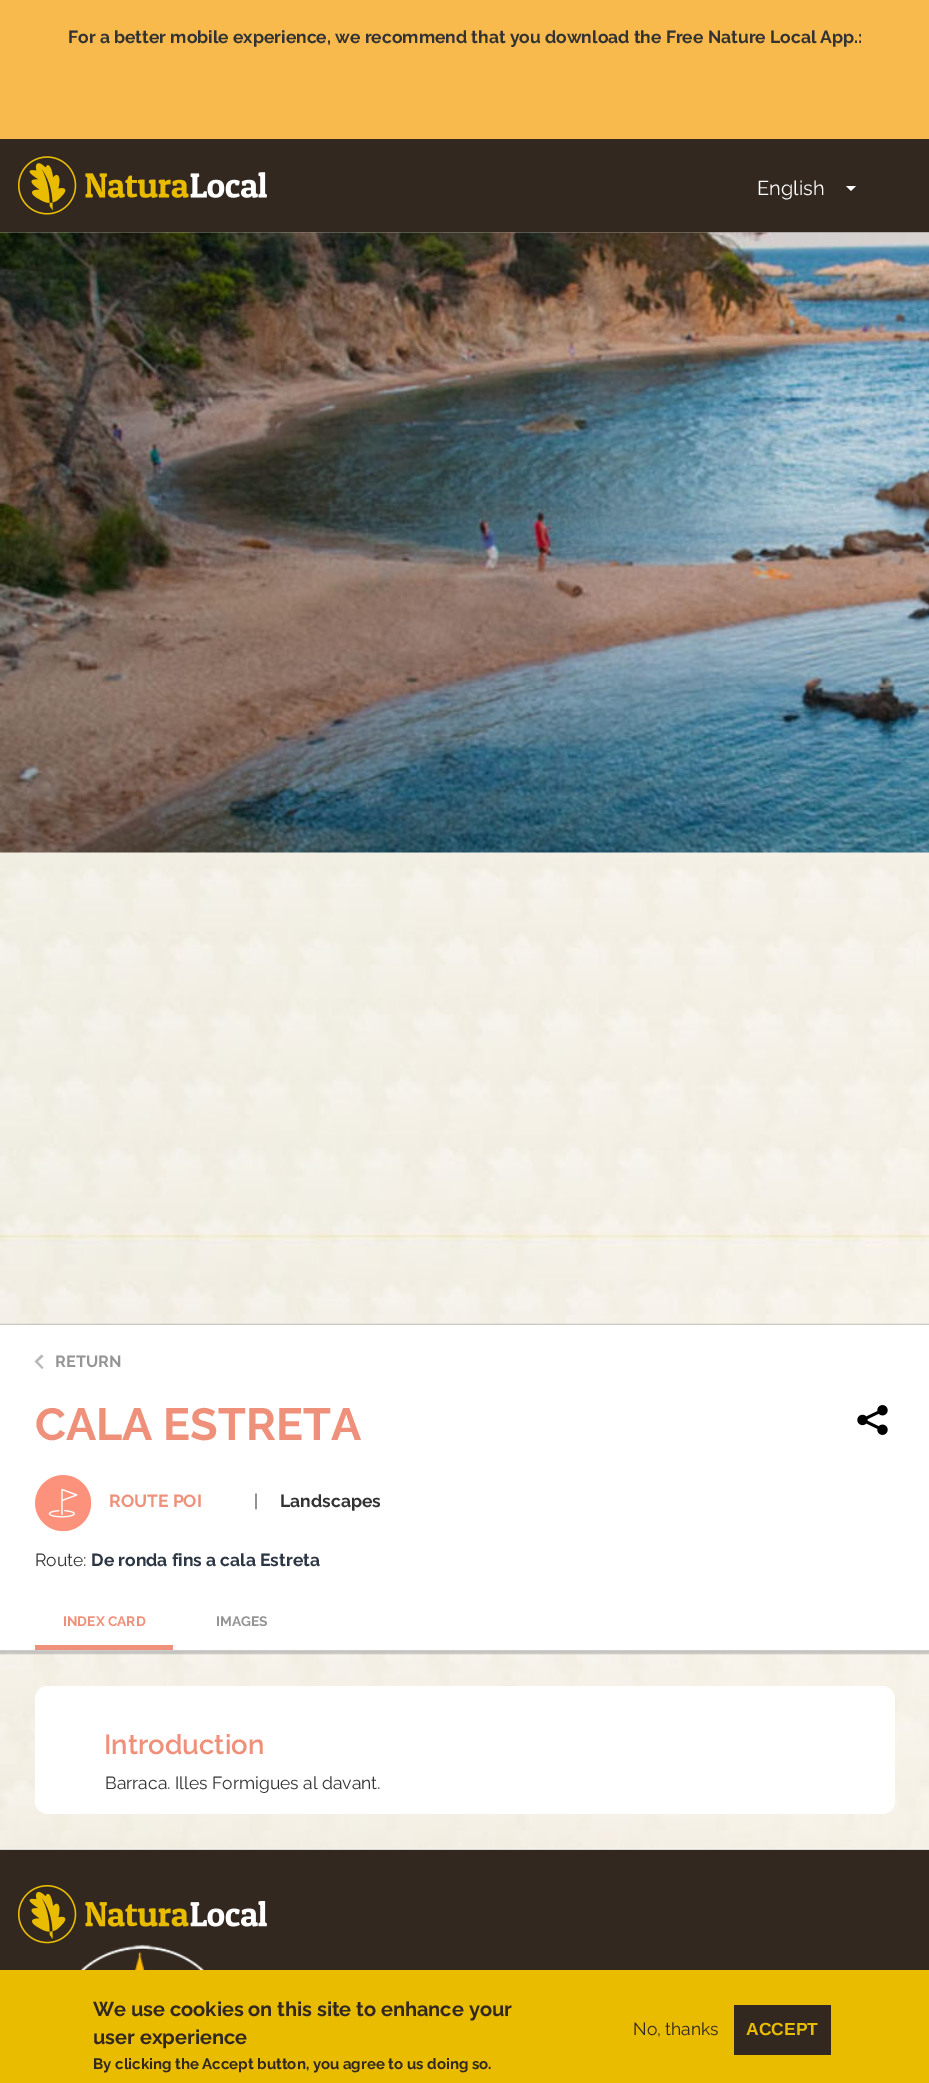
%!PS-Adobe-3.0
%%BoundingBox: 0 0 929 2083
%%LanguageLevel: 3
%%Pages: 1
%%EndComments
%%BeginProlog
/setink { dup -16 bitshift 255 div exch dup -8 bitshift 255 and 255 div exch 255 and 255 div setrgbcolor } def
/usefont { [ exch dup neg 0 0 3 -1 roll 0 0 ] selectfont } def
/setalpha { dup .setfillconstantalpha .setstrokeconstantalpha } def
/rrect { 5 dict begin { /r /h /w /y /x } { exch def } forall
  x r add y moveto x w add y 2 copy h add r arct x w add y h add x 1 index r arct
  x y h add x y r arct x y 2 copy exch w add exch r arct closepath end } def
/softshadow { 12 dict begin { /a /b /q /h /w /y /x } { exch def } forall gsave /was 0 def
  9 -2 -9 { dup b mul 4 div /e exch def 1 sub .425 mul 2.718 exch exp 1 add a .99 .min exch div /now exch def
    1 1 now sub 1 was sub div sub setalpha /was now def
    w h .min e 2 mul add 0 gt { x e sub y e sub w e 2 mul add h e 2 mul add
      q e add b .6 mul add w h .min 2 div e add .min 0 .max rrect fill } if } for grestore end } def
/drawimage { 5 dict begin { /h /w /y /x /name } { exch def } forall
  gsave x y translate w h scale
  w h 8 [w 0 0 h 0 0] name (r) file false 3 colorimage grestore end } def
%%EndProlog
%%BeginSetup
<< /PageSize [929 2083] /PageUsesTransparency true >> setpagedevice
%%EndSetup
%%Page: 1 1
0 .pushpdf14devicefilter
0 2083 translate 1 -1 scale
4 setmiterlimit
16#FFFFFF setink
0 0 929 2083 rectfill
16#F9BA4D setink
0 0 929 139 rectfill
/Raleway-Bold 17.5 usefont
16#333333 setink
68 43 moveto (For a better mobile experience, we recommend that you download the Free Nature Local App.:) show
16#322820 setink
0 139 929 94 rectfill
(img1.raw) 18 156 249 59 drawimage
/Raleway-Regular 20 usefont
16#FFFFFF setink
757 195 moveto (English) show
846 186 moveto 856 186 lineto 851 191 lineto closepath fill
(img2.raw) 0 232 929 1617 drawimage
(img3.raw) 0 232 929 621 drawimage
16#979797 setink
-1 1324 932 330 0 0.5 0.5 softshadow
16#FFFFFF setink
0 1325 929 325 rectfill
16#CBCBCB setink
0 1650 929 1 rectfill
16#B8B8B8 setink
1.1 setlinewidth
2 setlinecap
42 1368 moveto 35.5 1361.5 lineto 41.5 1355.5 lineto 42.5 1356.5 lineto 37 1361.5 lineto 42.5 1367.5 lineto closepath stroke
/Raleway-Bold 16.25 usefont
16#959595 setink
55 1367 moveto (RETURN) show
/Raleway-Bold 45 usefont
16#EF917A setink
35 1440 moveto (CALA ESTRETA) show
(img4.raw) 857 1405 31 30 drawimage
(img5.raw) 35 1475 56 56 drawimage
/Raleway-Bold 17.5 usefont
109 1507 moveto (ROUTE POI) show
/Raleway-Regular 17.5 usefont
16#333333 setink
254 1507 moveto (|) show
/Raleway-Bold 17.5 usefont
280 1507 moveto (Landscapes) show
/Raleway-Regular 17.5 usefont
35 1566 moveto (Route:) show
/Raleway-Bold 17.5 usefont
16#2C3644 setink
91 1566 moveto (De ronda fins a cala Estreta) show
16#EF917A setink
35 1645 138 5 rectfill
/Raleway-Bold 13.75 usefont
63 1626 moveto (INDEX CARD) show
16#959595 setink
216 1626 moveto (IMAGES) show
16#FFFFFF setink
35 1686 860 128 13 rrect fill
/Raleway-SemiBold 27.5 usefont
16#EF917A setink
104 1754 moveto (Introduction) show
/Raleway-Regular 17.5 usefont
16#333333 setink
105 1789 moveto (Barraca. Illes Formigues al davant.) show
16#322820 setink
0 1850 929 120 rectfill
16#D8D8D8 setink
0 1849 929 1 rectfill
(img6.raw) 18 1885 249 59 drawimage
(img7.raw) 80 1944 124 26 drawimage
16#E9BC00 setink
0 1970 929 113 rectfill
/Raleway-Bold 20 usefont
16#322820 setink
93 2016 moveto (We use cookies on this site to enhance your) show
93 2044 moveto (user experience) show
/Raleway-Bold 15 usefont
93 2069 moveto (By clicking the Accept button, you agree to us doing so.) show
/Raleway-Regular 17.5 usefont
633 2035 moveto (No, thanks) show
734 2005 97 50 rectfill
/LiberationSans-Bold 17.5 usefont
16#E9BC00 setink
746 2035 moveto (ACCEPT) show
.poppdf14devicefilter showpage
%%EOF
